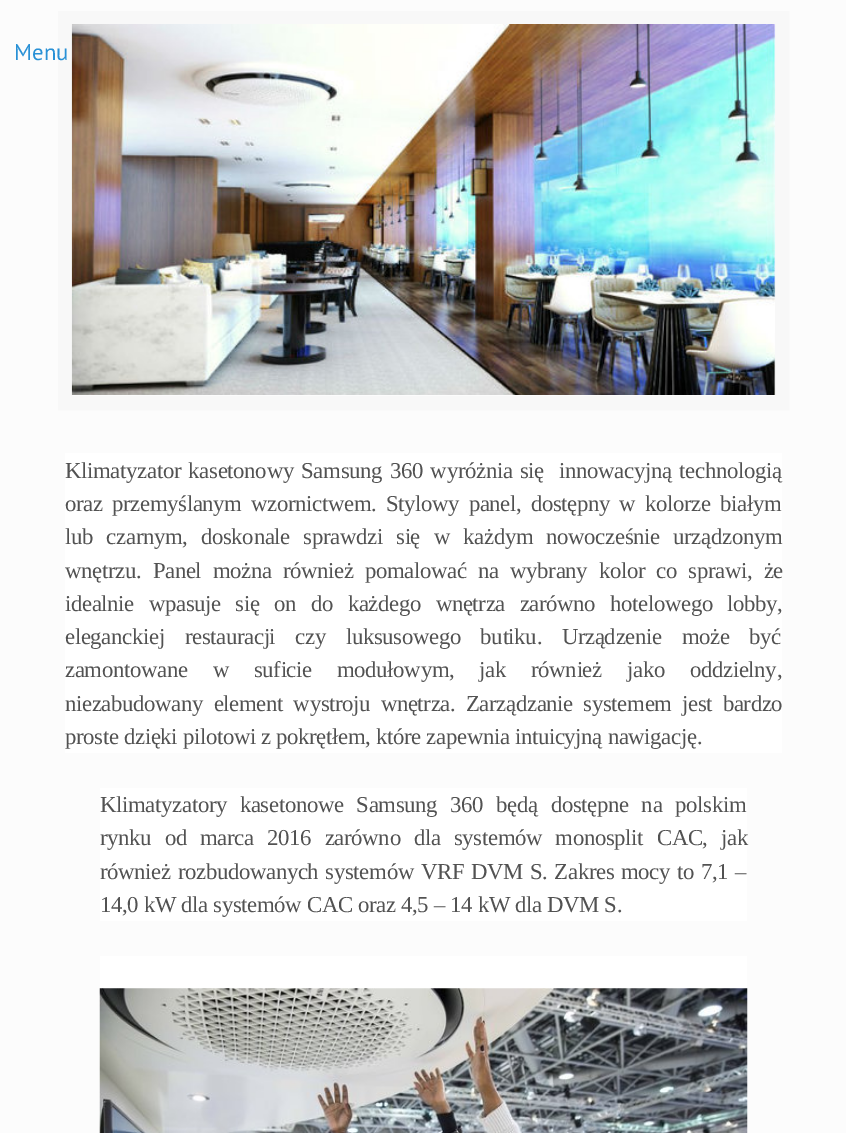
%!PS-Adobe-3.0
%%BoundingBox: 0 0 846 1133
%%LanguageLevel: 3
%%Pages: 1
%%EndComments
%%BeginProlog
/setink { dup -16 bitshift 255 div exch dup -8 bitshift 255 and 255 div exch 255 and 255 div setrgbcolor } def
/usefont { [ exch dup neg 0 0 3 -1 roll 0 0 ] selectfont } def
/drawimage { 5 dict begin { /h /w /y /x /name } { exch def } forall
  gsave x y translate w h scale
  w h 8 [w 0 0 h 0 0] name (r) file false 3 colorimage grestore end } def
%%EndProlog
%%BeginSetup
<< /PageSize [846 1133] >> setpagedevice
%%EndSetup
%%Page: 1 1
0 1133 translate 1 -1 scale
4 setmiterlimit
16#FCFCFC setink
0 0 846 1133 rectfill
16#F8F8F8 setink
14 setlinewidth
65 18 717 385 rectstroke
/PTSans-Regular 22.75 usefont
16#2991D6 setink
14 60 moveto (Menu) show
(img1.raw) 71 24 705 371 drawimage
16#FFFFFF setink
65 453 717 300 rectfill
/LiberationSerif-Regular 22.75 usefont
16#525252 setink
65 478 moveto 2.25 0 32 -0.35 0 (Klimatyzator kasetonowy Samsung 360 wyróżnia się  innowacyjną technologią) awidthshow
65 511 moveto 4 0 32 -0.35 0 (oraz przemyślanym wzornictwem. Stylowy panel, dostępny w kolorze białym) awidthshow
65 544 moveto 8 0 32 -0.35 0 (lub czarnym, doskonale sprawdzi się w każdym nowocześnie urządzonym) awidthshow
65 578 moveto 6 0 32 -0.35 0 (wnętrzu. Panel można również pomalować na wybrany kolor co sprawi, że) awidthshow
65 611 moveto 9.25 0 32 -0.35 0 (idealnie wpasuje się on do każdego wnętrza zarówno hotelowego lobby,) awidthshow
65 644 moveto 14.5 0 32 -0.35 0 (eleganckiej restauracji czy luksusowego butiku. Urządzenie może być) awidthshow
65 677 moveto 19.75 0 32 -0.35 0 (zamontowane w suficie modułowym, jak również jako oddzielny,) awidthshow
65 711 moveto 5 0 32 -0.35 0 (niezabudowany element wystroju wnętrza. Zarządzanie systemem jest bardzo) awidthshow
65 744 moveto -0.35 0 (proste dzięki pilotowi z pokrętłem, które zapewnia intuicyjną nawigację.) ashow
16#FFFFFF setink
100 788 647 133 rectfill
16#525252 setink
100 812 moveto 7.5 0 32 -0.35 0 (Klimatyzatory kasetonowe Samsung 360 będą dostępne na polskim) awidthshow
100 845 moveto 8 0 32 -0.35 0 (rynku od marca 2016 zarówno dla systemów monosplit CAC, jak) awidthshow
100 879 moveto 1.6 0 32 -0.35 0 (również rozbudowanych systemów VRF DVM S. Zakres mocy to 7,1 –) awidthshow
100 912 moveto -0.35 0 (14,0 kW dla systemów CAC oraz 4,5 – 14 kW dla DVM S.) ashow
16#FFFFFF setink
100 956 647 33 rectfill
(img2.raw) 99 988 649 145 drawimage
showpage
%%EOF
